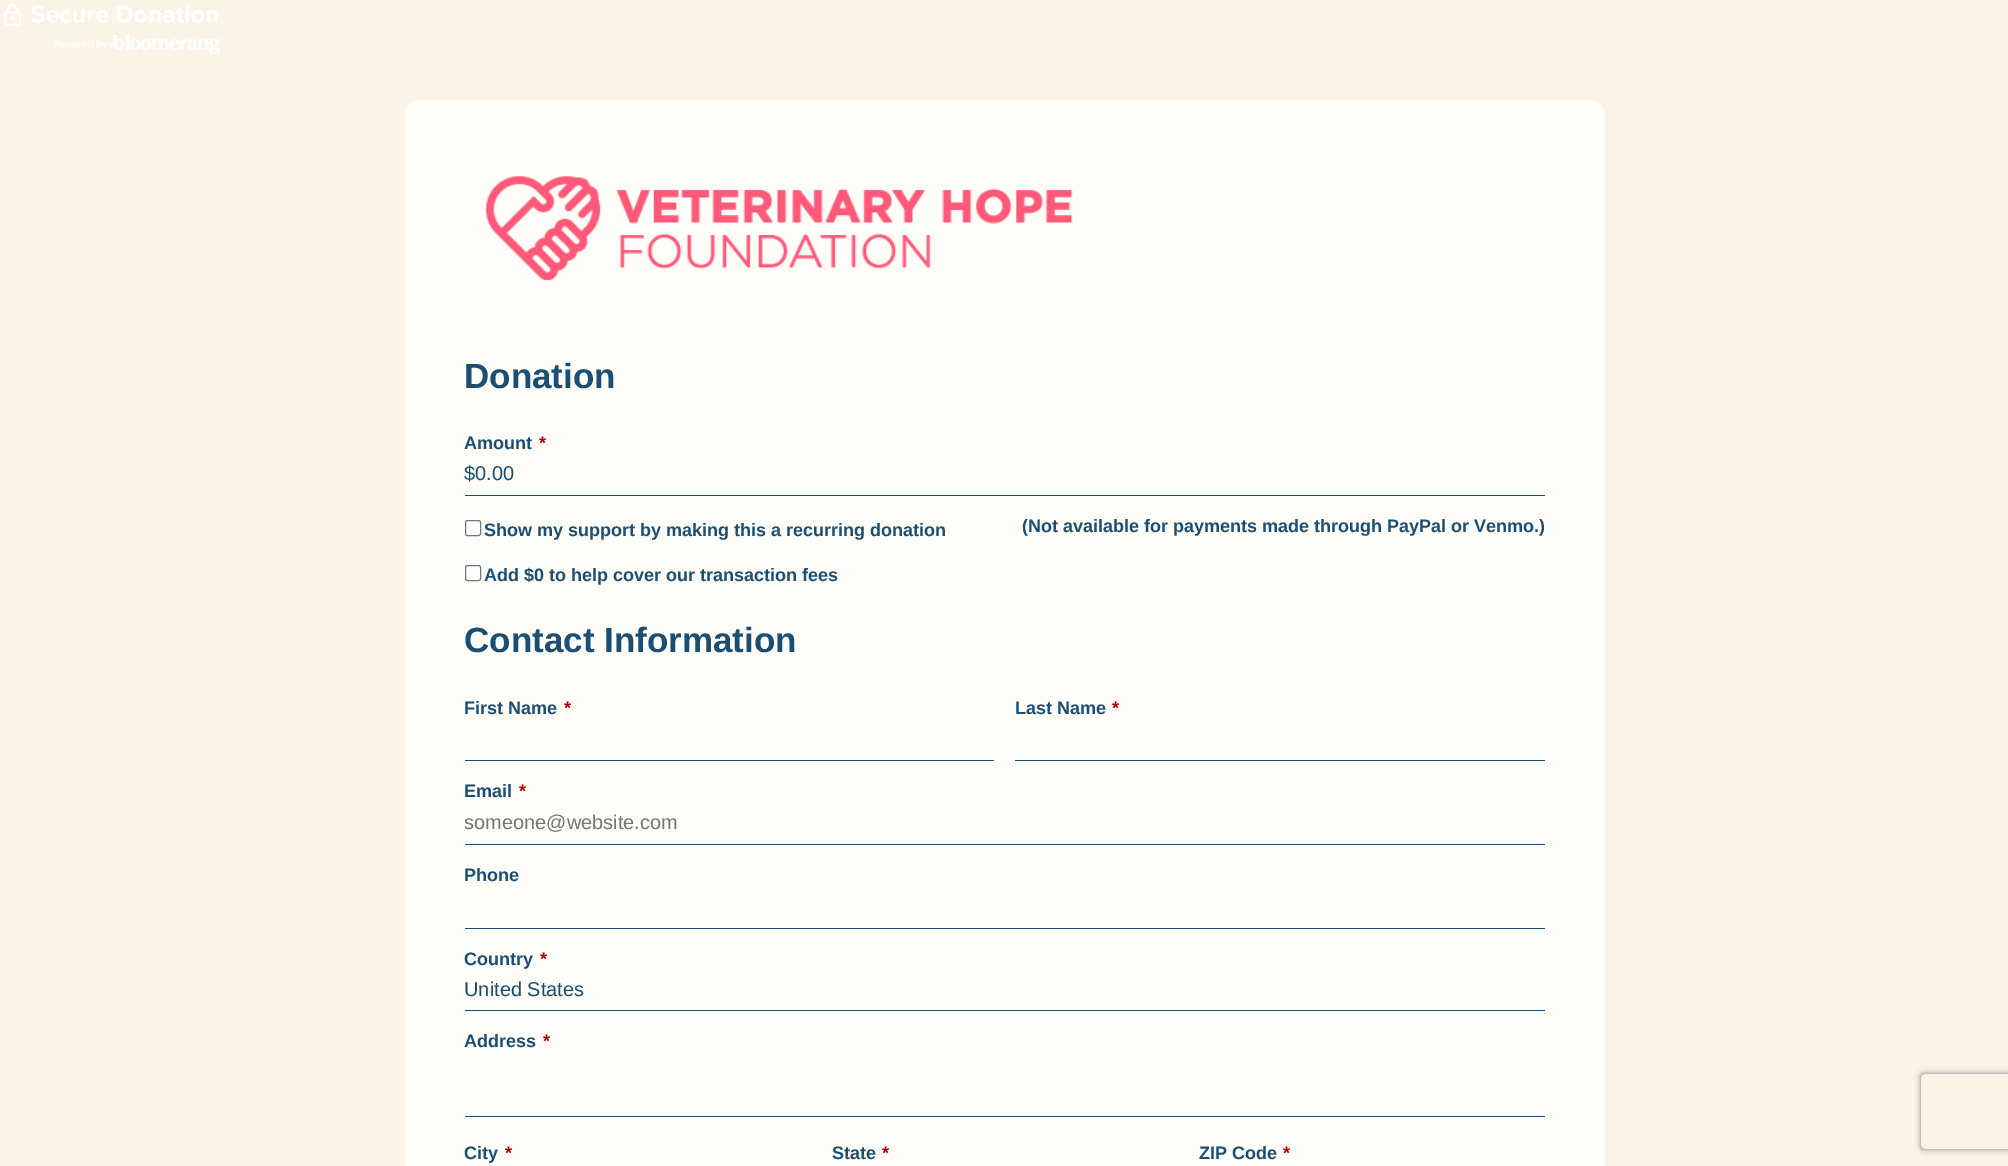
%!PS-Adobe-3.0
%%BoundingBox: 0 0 2008 1166
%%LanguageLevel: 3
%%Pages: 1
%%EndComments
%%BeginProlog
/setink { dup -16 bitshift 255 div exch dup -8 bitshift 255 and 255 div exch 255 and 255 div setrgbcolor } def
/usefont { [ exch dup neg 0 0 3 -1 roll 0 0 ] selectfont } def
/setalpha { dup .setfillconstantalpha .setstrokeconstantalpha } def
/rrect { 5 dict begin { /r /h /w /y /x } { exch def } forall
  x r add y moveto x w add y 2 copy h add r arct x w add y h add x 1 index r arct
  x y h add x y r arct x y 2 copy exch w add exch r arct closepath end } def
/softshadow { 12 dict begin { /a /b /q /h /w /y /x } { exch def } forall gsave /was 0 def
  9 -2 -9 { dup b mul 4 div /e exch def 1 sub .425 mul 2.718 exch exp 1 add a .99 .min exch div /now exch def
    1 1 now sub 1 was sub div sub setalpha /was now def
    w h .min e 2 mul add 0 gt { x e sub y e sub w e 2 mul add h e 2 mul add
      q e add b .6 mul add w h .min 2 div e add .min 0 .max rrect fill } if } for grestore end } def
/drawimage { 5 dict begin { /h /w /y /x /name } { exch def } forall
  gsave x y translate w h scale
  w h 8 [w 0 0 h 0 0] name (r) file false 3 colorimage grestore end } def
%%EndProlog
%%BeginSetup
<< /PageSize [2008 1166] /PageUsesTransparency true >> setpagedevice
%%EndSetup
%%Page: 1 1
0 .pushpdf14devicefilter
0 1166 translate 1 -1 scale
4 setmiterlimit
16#FAF3E6 setink
0 0 2008 1166 rectfill
(img1.raw) 4 4 216 51 drawimage
16#FFFDF8 setink
405 100 1200 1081 15 rrect fill
(img2.raw) 485 176 588 105 drawimage
/LiberationSans-Bold 35 usefont
16#1A4E73 setink
464 388 moveto (Donation) show
/LiberationSans-Bold 18 usefont
464 449 moveto (Amount) show
16#AA0000 setink
539 449 moveto (*) show
16#1A4E73 setink
465 495 1080 1 rectfill
/LiberationSans-Regular 20 usefont
464 480 moveto ($0.00) show
16#FFFFFF setink
465.5 520.5 15 15 2 rrect gsave fill grestore
16#767676 setink
stroke
/LiberationSans-Bold 18 usefont
16#1A4E73 setink
484 536 moveto (Show my support by making this a recurring donation) show
1022 532 moveto (\(Not available for payments made through PayPal or Venmo.\)) show
16#FFFFFF setink
465.5 565.5 15 15 2 rrect gsave fill grestore
16#767676 setink
stroke
16#1A4E73 setink
484 581 moveto (Add $0 to help cover our transaction fees) show
/LiberationSans-Bold 35 usefont
464 652 moveto (Contact Information) show
/LiberationSans-Bold 18 usefont
464 714 moveto (First Name) show
16#AA0000 setink
564 714 moveto (*) show
16#1A4E73 setink
465 760 529 1 rectfill
1015 714 moveto (Last Name) show
16#AA0000 setink
1112 714 moveto (*) show
16#1A4E73 setink
1015 760 530 1 rectfill
464 797 moveto (Email) show
16#AA0000 setink
519 797 moveto (*) show
16#1A4E73 setink
465 844 1080 1 rectfill
/LiberationSans-Regular 20 usefont
16#757575 setink
464 829 moveto (someone@website.com) show
/LiberationSans-Bold 18 usefont
16#1A4E73 setink
464 881 moveto (Phone) show
465 928 1080 1 rectfill
464 965 moveto (Country) show
16#AA0000 setink
540 965 moveto (*) show
16#1A4E73 setink
465 1010 1080 1 rectfill
/LiberationSans-Regular 20 usefont
464 996 moveto (United States) show
/LiberationSans-Bold 18 usefont
464 1047 moveto (Address) show
16#AA0000 setink
543 1047 moveto (*) show
16#1A4E73 setink
465 1116 1080 1 rectfill
464 1159 moveto (City) show
16#AA0000 setink
505 1159 moveto (*) show
16#1A4E73 setink
832 1159 moveto (State) show
16#AA0000 setink
882 1159 moveto (*) show
16#1A4E73 setink
1199 1159 moveto (ZIP Code) show
16#AA0000 setink
1283 1159 moveto (*) show
gsave
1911 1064 moveto 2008 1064 lineto 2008 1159 lineto 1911 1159 lineto closepath 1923.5 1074 moveto 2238.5 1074 lineto 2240 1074 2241 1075 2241 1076.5 curveto 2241 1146.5 lineto 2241 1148 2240 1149 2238.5 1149 curveto 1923.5 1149 lineto 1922 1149 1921 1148 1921 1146.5 curveto 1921 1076.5 lineto 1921 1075 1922 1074 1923.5 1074 curveto closepath eoclip newpath
16#808080 setink
1921 1074 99 75 2.5 3 1 softshadow
grestore
.poppdf14devicefilter showpage
%%EOF
